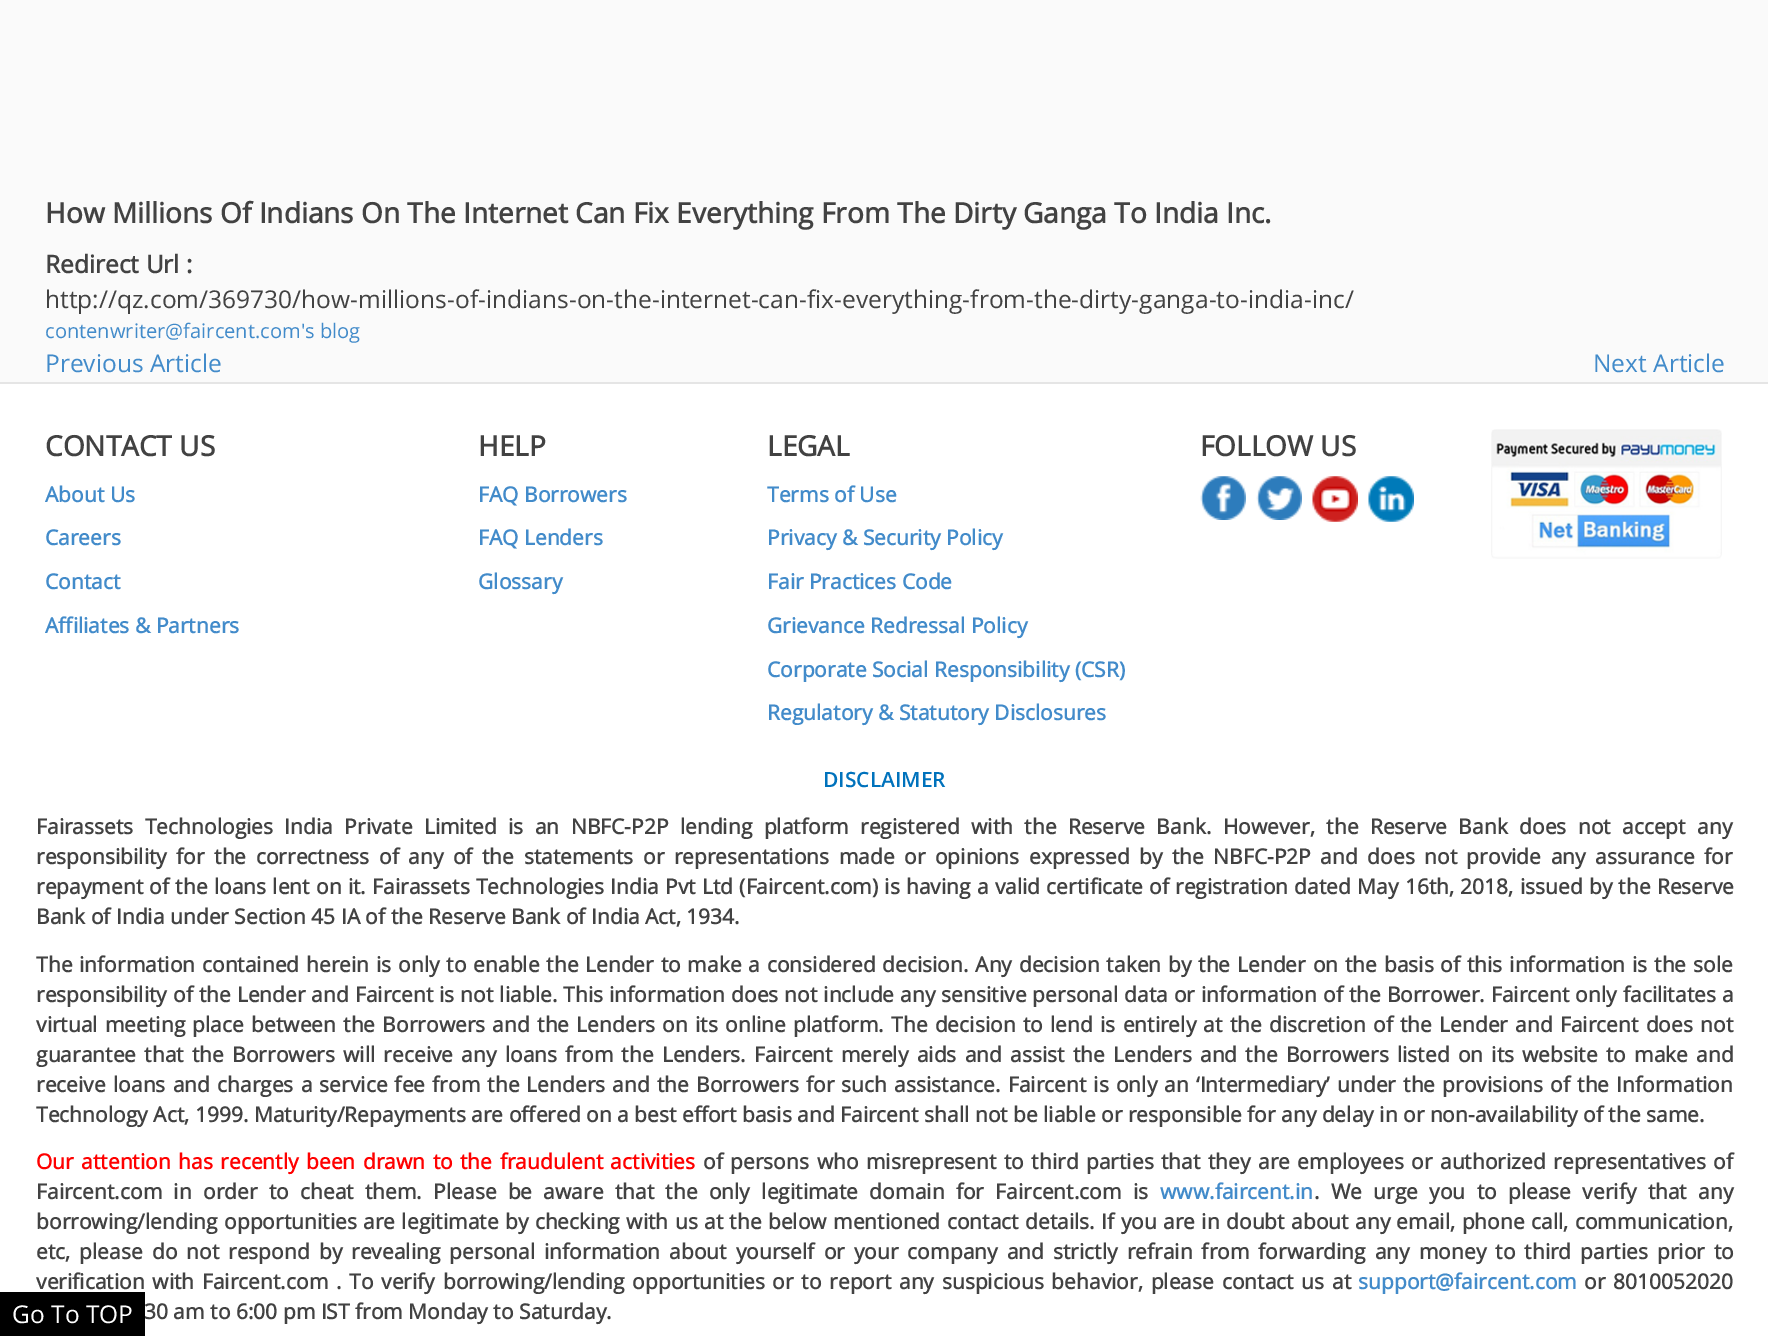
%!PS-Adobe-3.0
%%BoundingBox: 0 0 1768 1336
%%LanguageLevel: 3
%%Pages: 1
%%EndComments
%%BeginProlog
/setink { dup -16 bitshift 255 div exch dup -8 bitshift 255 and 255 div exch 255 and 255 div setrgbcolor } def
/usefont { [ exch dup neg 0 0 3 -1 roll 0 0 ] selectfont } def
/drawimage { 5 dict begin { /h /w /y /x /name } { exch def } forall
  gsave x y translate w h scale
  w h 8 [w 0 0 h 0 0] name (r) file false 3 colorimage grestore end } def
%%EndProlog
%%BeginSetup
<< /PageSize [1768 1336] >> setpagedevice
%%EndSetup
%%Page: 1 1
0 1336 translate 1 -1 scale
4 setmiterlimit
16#FAFAFA setink
0 0 1768 1336 rectfill
/OpenSans-Bold 28 usefont
16#424242 setink
45 223 moveto (How Millions Of Indians On The Internet Can Fix Everything From The Dirty Ganga To India Inc.) show
/OpenSans-Bold 24.5 usefont
45 273 moveto (Redirect Url :) show
/OpenSans-Regular 24.5 usefont
45 308 moveto (http://qz.com/369730/how-millions-of-indians-on-the-internet-can-fix-everything-from-the-dirty-ganga-to-india-inc/) show
/OpenSans-Regular 20.1 usefont
16#428BCA setink
45 338 moveto (contenwriter@faircent.com's blog) show
/OpenSans-Regular 24.5 usefont
45 372 moveto (Previous Article) show
1593 372 moveto (Next Article) show
16#FFFFFF setink
0 384 1768 952 rectfill
16#E5E5E5 setink
0 382 1768 2 rectfill
/OpenSans-Bold 28 usefont
16#424242 setink
45 456 moveto (CONTACT US) show
/OpenSans-Bold 21 usefont
16#428BCA setink
[
    [(About Us) 45 502]
    [(Careers) 45 545]
    [(Contact) 45 589]
    [(Affiliates & Partners) 45 633]
] { aload pop moveto show } forall
/OpenSans-Bold 28 usefont
16#424242 setink
478 456 moveto (HELP) show
/OpenSans-Bold 21 usefont
16#428BCA setink
[
    [(FAQ Borrowers) 478 502]
    [(FAQ Lenders) 478 545]
    [(Glossary) 478 589]
] { aload pop moveto show } forall
/OpenSans-Bold 28 usefont
16#424242 setink
767 456 moveto (LEGAL) show
/OpenSans-Bold 21 usefont
16#428BCA setink
[
    [(Terms of Use) 767 502]
    [(Privacy & Security Policy) 767 545]
    [(Fair Practices Code) 767 589]
    [(Grievance Redressal Policy) 767 633]
    [(Corporate Social Responsibility \(CSR\)) 767 677]
    [(Regulatory & Statutory Disclosures) 767 720]
] { aload pop moveto show } forall
/OpenSans-Bold 28 usefont
16#424242 setink
1200 456 moveto (FOLLOW US) show
(img1.raw) 1200 476 46 44 drawimage
(img2.raw) 1256 476 46 44 drawimage
(img3.raw) 1312 476 46 46 drawimage
(img4.raw) 1368 476 46 46 drawimage
(img5.raw) 1491 429 231 130 drawimage
/OpenSans-SemiBold 21 usefont
16#0072BC setink
823 787 moveto (DISCLAIMER) show
/OpenSans-Bold 21 usefont
16#424242 setink
36 834 moveto 5.9 0 32 (Fairassets Technologies India Private Limited is an NBFC-P2P lending platform registered with the Reserve Bank. However, the Reserve Bank does not accept any) widthshow
36 864 moveto 4 0 32 (responsibility for the correctness of any of the statements or representations made or opinions expressed by the NBFC-P2P and does not provide any assurance for) widthshow
36 894 moveto 0.75 0 32 (repayment of the loans lent on it. Fairassets Technologies India Pvt Ltd \(Faircent.com\) is having a valid certificate of registration dated May 16th, 2018, issued by the Reserve) widthshow
36 924 moveto (Bank of India under Section 45 IA of the Reserve Bank of India Act, 1934.) show
36 972 moveto 1.3 0 32 (The information contained herein is only to enable the Lender to make a considered decision. Any decision taken by the Lender on the basis of this information is the sole) widthshow
36 1002 moveto 0.5 0 32 (responsibility of the Lender and Faircent is not liable. This information does not include any sensitive personal data or information of the Borrower. Faircent only facilitates a) widthshow
36 1032 moveto 1.75 0 32 (virtual meeting place between the Borrowers and the Lenders on its online platform. The decision to lend is entirely at the discretion of the Lender and Faircent does not) widthshow
36 1062 moveto 2.7 0 32 (guarantee that the Borrowers will receive any loans from the Lenders. Faircent merely aids and assist the Lenders and the Borrowers listed on its website to make and) widthshow
36 1092 moveto 1.65 0 32 (receive loans and charges a service fee from the Lenders and the Borrowers for such assistance. Faircent is only an ‘Intermediary’ under the provisions of the Information) widthshow
36 1122 moveto (Technology Act, 1999. Maturity/Repayments are offered on a best effort basis and Faircent shall not be liable or responsible for any delay in or non-availability of the same.) show
16#FF0000 setink
36 1169 moveto 2 0 32 (Our attention has recently been drawn to the fraudulent activities) widthshow
16#424242 setink
703 1169 moveto 2 0 32 (of persons who misrepresent to third parties that they are employees or authorized representatives of) widthshow
36 1199 moveto 5.75 0 32 (Faircent.com in order to cheat them. Please be aware that the only legitimate domain for Faircent.com is) widthshow
16#428BCA setink
1160 1199 moveto (www.faircent.in) show
16#424242 setink
1314 1199 moveto 5.75 0 32 (. We urge you to please verify that any) widthshow
36 1229 moveto 0.9 0 32 (borrowing/lending opportunities are legitimate by checking with us at the below mentioned contact details. If you are in doubt about any email, phone call, communication,) widthshow
36 1259 moveto 3.5 0 32 (etc, please do not respond by revealing personal information about yourself or your company and strictly refrain from forwarding any money to third parties prior to) widthshow
36 1289 moveto 2.25 0 32 (verification with Faircent.com . To verify borrowing/lending opportunities or to report any suspicious behavior, please contact us at) widthshow
16#428BCA setink
1358 1289 moveto (support@faircent.com) show
16#424242 setink
1584 1289 moveto 2.25 0 32 (or 8010052020) widthshow
144 1319 moveto (30 am to 6:00 pm IST from Monday to Saturday.) show
16#000000 setink
0 1292 145 44 rectfill
/OpenSans-Regular 24.5 usefont
16#FFFFFF setink
12 1323 moveto (Go To TOP) show
showpage
%%EOF
